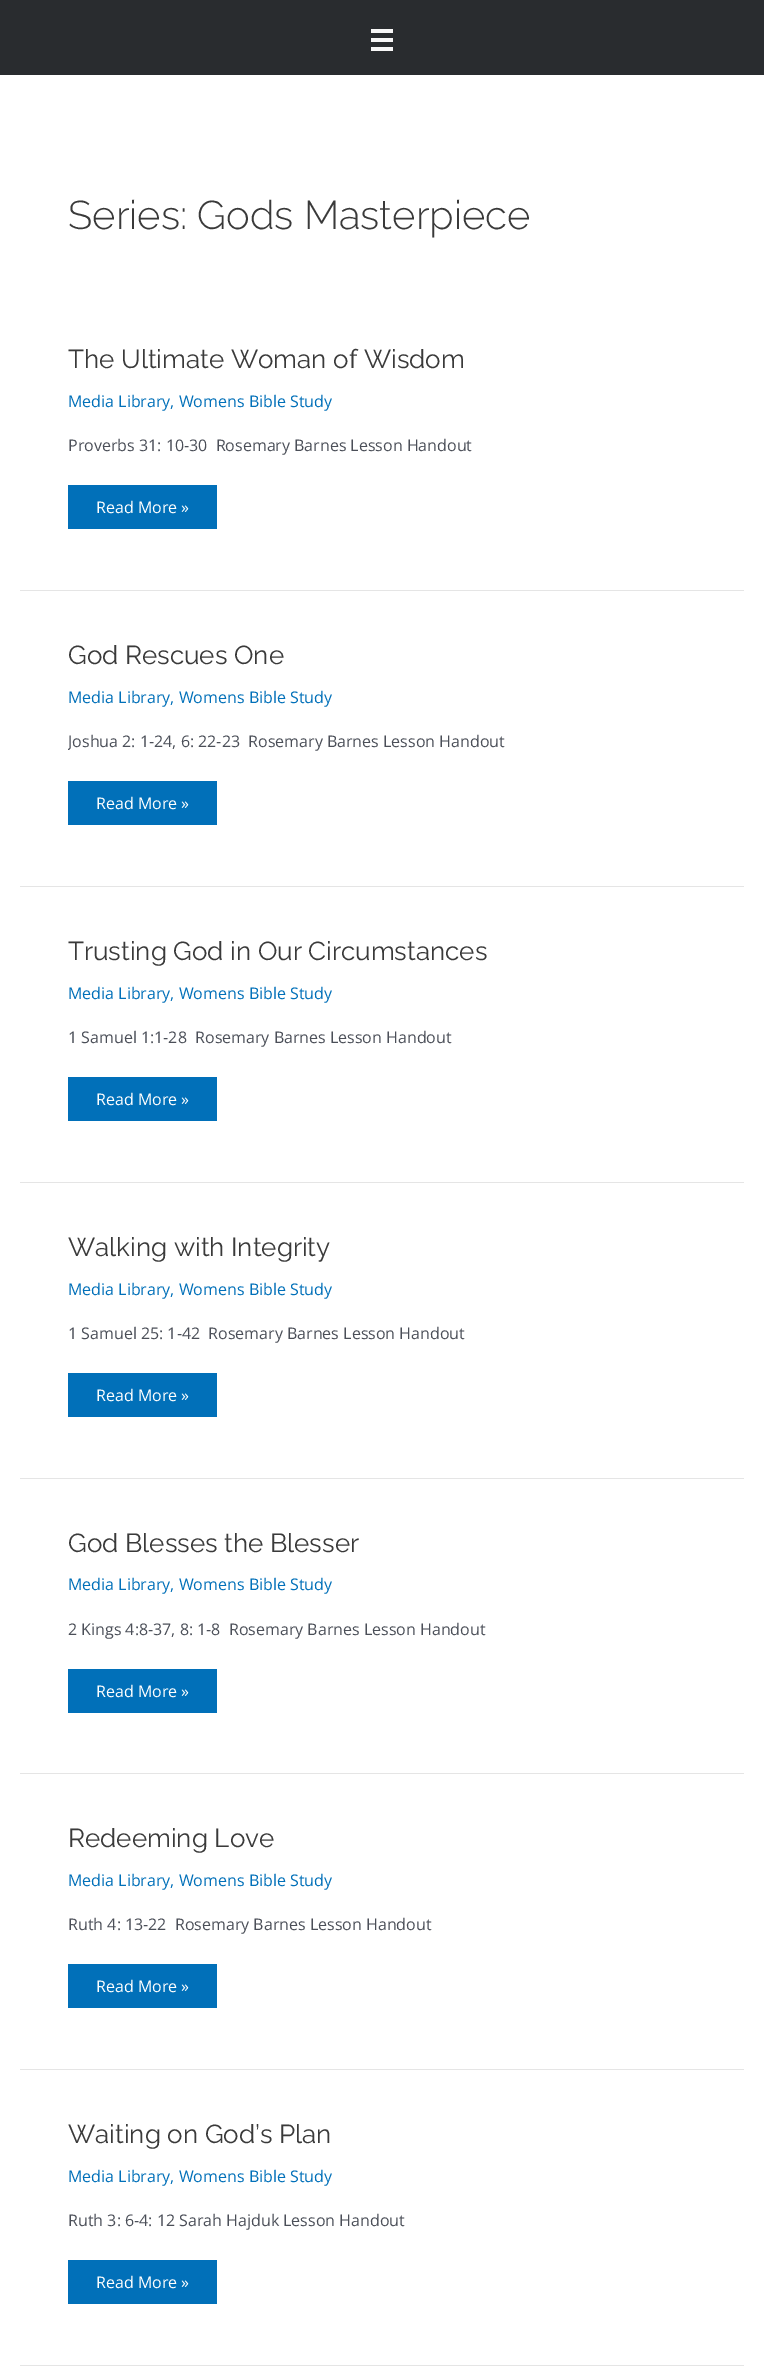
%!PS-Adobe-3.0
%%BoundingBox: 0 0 764 2373
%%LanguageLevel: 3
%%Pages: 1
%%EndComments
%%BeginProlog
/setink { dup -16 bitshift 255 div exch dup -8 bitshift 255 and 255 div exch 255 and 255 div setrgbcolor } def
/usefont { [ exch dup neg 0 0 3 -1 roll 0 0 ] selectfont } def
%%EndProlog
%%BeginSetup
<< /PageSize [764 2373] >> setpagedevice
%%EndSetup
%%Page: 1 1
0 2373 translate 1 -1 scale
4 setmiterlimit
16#FFFFFF setink
0 0 764 2373 rectfill
[
    [0 0 764 75 16#292C2F]
    [371 29 22 4 16#F7F7F7]
    [371 38 22 4 16#F7F7F7]
    [371 47 22 4 16#F7F7F7]
] { aload pop setink rectfill } forall
/Raleway-Light 40 usefont
16#3A3A3A setink
68 229 moveto (Series: Gods Masterpiece) show
16#E5E5E5 setink
20 590 724 1 rectfill
/Raleway-Regular 26 usefont
16#3A3A3A setink
68 368 moveto (The Ultimate Woman of Wisdom) show
/OpenSans-Regular 16 usefont
16#0170B9 setink
68 407 moveto (Media Library, Womens Bible Study) show
16#4B4F58 setink
68 451 moveto (Proverbs 31: 10-30  Rosemary Barnes Lesson Handout) show
16#0170B9 setink
68 485 149 44 rectfill
16#FFFFFF setink
96 513 moveto (Read More ») show
16#E5E5E5 setink
20 886 724 1 rectfill
/Raleway-Regular 26 usefont
16#3A3A3A setink
68 664 moveto (God Rescues One) show
/OpenSans-Regular 16 usefont
16#0170B9 setink
68 703 moveto (Media Library, Womens Bible Study) show
gsave
68 639 628 199 rectclip
16#4B4F58 setink
68 747 moveto (Joshua 2: 1-24, 6: 22-23  Rosemary Barnes Lesson Handout) show
grestore
68 781 149 44 rectfill
16#FFFFFF setink
96 809 moveto (Read More ») show
16#E5E5E5 setink
20 1182 724 1 rectfill
/Raleway-Regular 26 usefont
16#3A3A3A setink
68 960 moveto (Trusting God in Our Circumstances) show
/OpenSans-Regular 16 usefont
16#0170B9 setink
68 999 moveto (Media Library, Womens Bible Study) show
16#4B4F58 setink
68 1043 moveto (1 Samuel 1:1-28  Rosemary Barnes Lesson Handout) show
16#0170B9 setink
68 1077 149 44 rectfill
16#FFFFFF setink
96 1105 moveto (Read More ») show
16#E5E5E5 setink
20 1478 724 1 rectfill
/Raleway-Regular 26 usefont
16#3A3A3A setink
68 1256 moveto (Walking with Integrity) show
/OpenSans-Regular 16 usefont
16#0170B9 setink
68 1295 moveto (Media Library, Womens Bible Study) show
16#4B4F58 setink
68 1339 moveto (1 Samuel 25: 1-42  Rosemary Barnes Lesson Handout) show
16#0170B9 setink
68 1373 149 44 rectfill
16#FFFFFF setink
96 1401 moveto (Read More ») show
16#E5E5E5 setink
20 1773 724 1 rectfill
/Raleway-Regular 26 usefont
16#3A3A3A setink
68 1552 moveto (God Blesses the Blesser) show
/OpenSans-Regular 16 usefont
16#0170B9 setink
68 1590 moveto (Media Library, Womens Bible Study) show
16#4B4F58 setink
68 1635 moveto (2 Kings 4:8-37, 8: 1-8  Rosemary Barnes Lesson Handout) show
16#0170B9 setink
68 1669 149 44 rectfill
16#FFFFFF setink
96 1697 moveto (Read More ») show
16#E5E5E5 setink
20 2069 724 1 rectfill
/Raleway-Regular 26 usefont
16#3A3A3A setink
68 1847 moveto (Redeeming Love) show
/OpenSans-Regular 16 usefont
16#0170B9 setink
68 1886 moveto (Media Library, Womens Bible Study) show
16#4B4F58 setink
68 1930 moveto (Ruth 4: 13-22  Rosemary Barnes Lesson Handout) show
16#0170B9 setink
68 1964 149 44 rectfill
16#FFFFFF setink
96 1992 moveto (Read More ») show
16#E5E5E5 setink
20 2365 724 1 rectfill
/Raleway-Regular 26 usefont
16#3A3A3A setink
68 2143 moveto (Waiting on God’s Plan) show
/OpenSans-Regular 16 usefont
16#0170B9 setink
68 2182 moveto (Media Library, Womens Bible Study) show
16#4B4F58 setink
68 2226 moveto (Ruth 3: 6-4: 12 Sarah Hajduk Lesson Handout) show
16#0170B9 setink
68 2260 149 44 rectfill
16#FFFFFF setink
96 2288 moveto (Read More ») show
showpage
%%EOF
